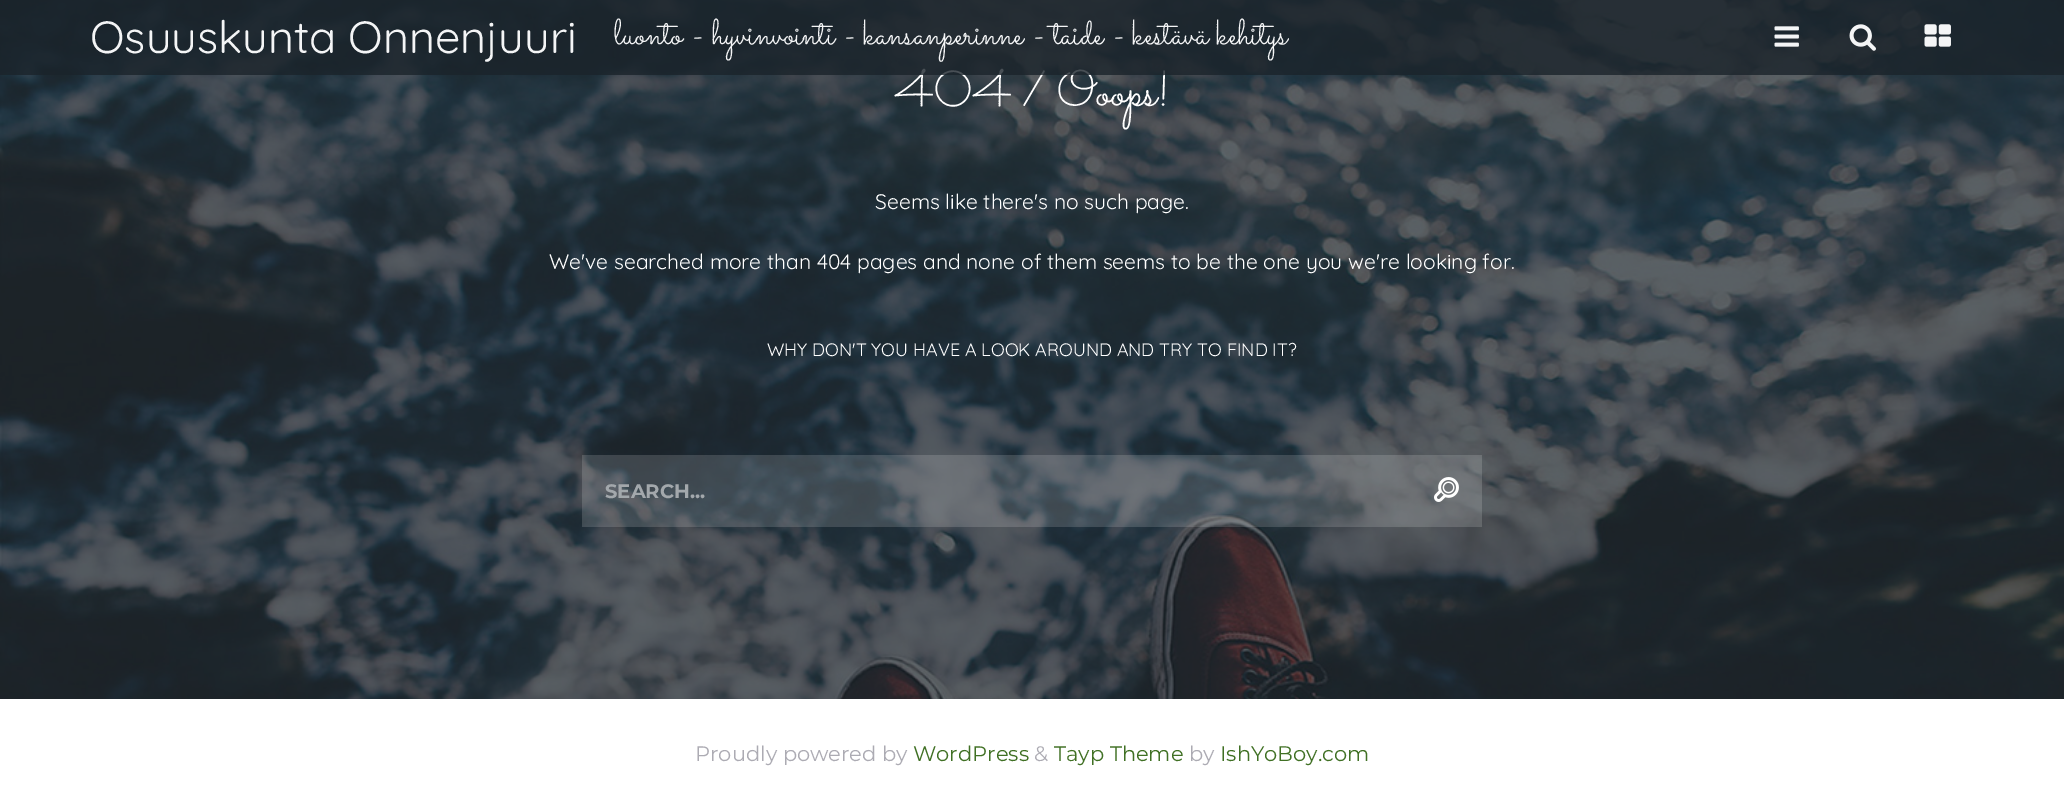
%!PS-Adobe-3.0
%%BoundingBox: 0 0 2064 807
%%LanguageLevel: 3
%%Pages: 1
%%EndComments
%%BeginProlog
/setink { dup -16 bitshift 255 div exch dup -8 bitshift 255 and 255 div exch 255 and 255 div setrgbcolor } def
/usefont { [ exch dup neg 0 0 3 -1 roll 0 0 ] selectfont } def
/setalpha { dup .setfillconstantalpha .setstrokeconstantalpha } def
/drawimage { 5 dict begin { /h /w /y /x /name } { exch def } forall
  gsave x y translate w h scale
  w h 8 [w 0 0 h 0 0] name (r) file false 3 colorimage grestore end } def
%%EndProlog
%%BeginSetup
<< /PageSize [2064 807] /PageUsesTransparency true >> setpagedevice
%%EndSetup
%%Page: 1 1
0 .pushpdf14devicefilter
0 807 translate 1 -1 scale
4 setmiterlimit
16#FFFFFF setink
0 0 2064 807 rectfill
(img4.raw) 0 0 2064 699 drawimage
/Sacramento-Regular 49.5 usefont
894 105 moveto (404 / Ooops!) show
0.8 setalpha
16#1A232A setink
0 0 2064 75 rectfill
/Quicksand-Regular 45 usefont
1 setalpha
16#F4F5F6 setink
90 53 moveto (Osuuskunta Onnenjuuri) show
/Sacramento-Regular 36 usefont
614 44 moveto (luonto - hyvinvointi - kansanperinne - taide - kestävä kehitys) show
(img1.raw) 1774 26 25 21 drawimage
(img2.raw) 1849 24 27 27 drawimage
(img3.raw) 1924 24 27 23 drawimage
/Quicksand-Regular 21 usefont
16#FFFFFF setink
875 209 moveto (Seems like there's no such page.) show
549 269 moveto (We've searched more than 404 pages and none of them seems to be the one you we're looking for.) show
/Quicksand-Regular 18 usefont
767 356 moveto (WHY DON'T YOU HAVE A LOOK AROUND AND TRY TO FIND IT?) show
0.15 setalpha
582 455 900 72 rectfill
/Montserrat-Bold 19.5 usefont
1 setalpha
16#A3A8AC setink
605 498 moveto (SEARCH...) show
(img5.raw) 1434 477 25 25 drawimage
/Montserrat-Regular 21 usefont
16#ACABB3 setink
695 761 moveto (Proudly powered by) show
16#407024 setink
913 761 moveto (WordPress) show
16#ACABB3 setink
1034 761 moveto (&) show
16#407024 setink
1054 761 moveto (Tayp Theme) show
16#ACABB3 setink
1189 761 moveto (by) show
16#407024 setink
1220 761 moveto (IshYoBoy.com) show
.poppdf14devicefilter showpage
%%EOF
